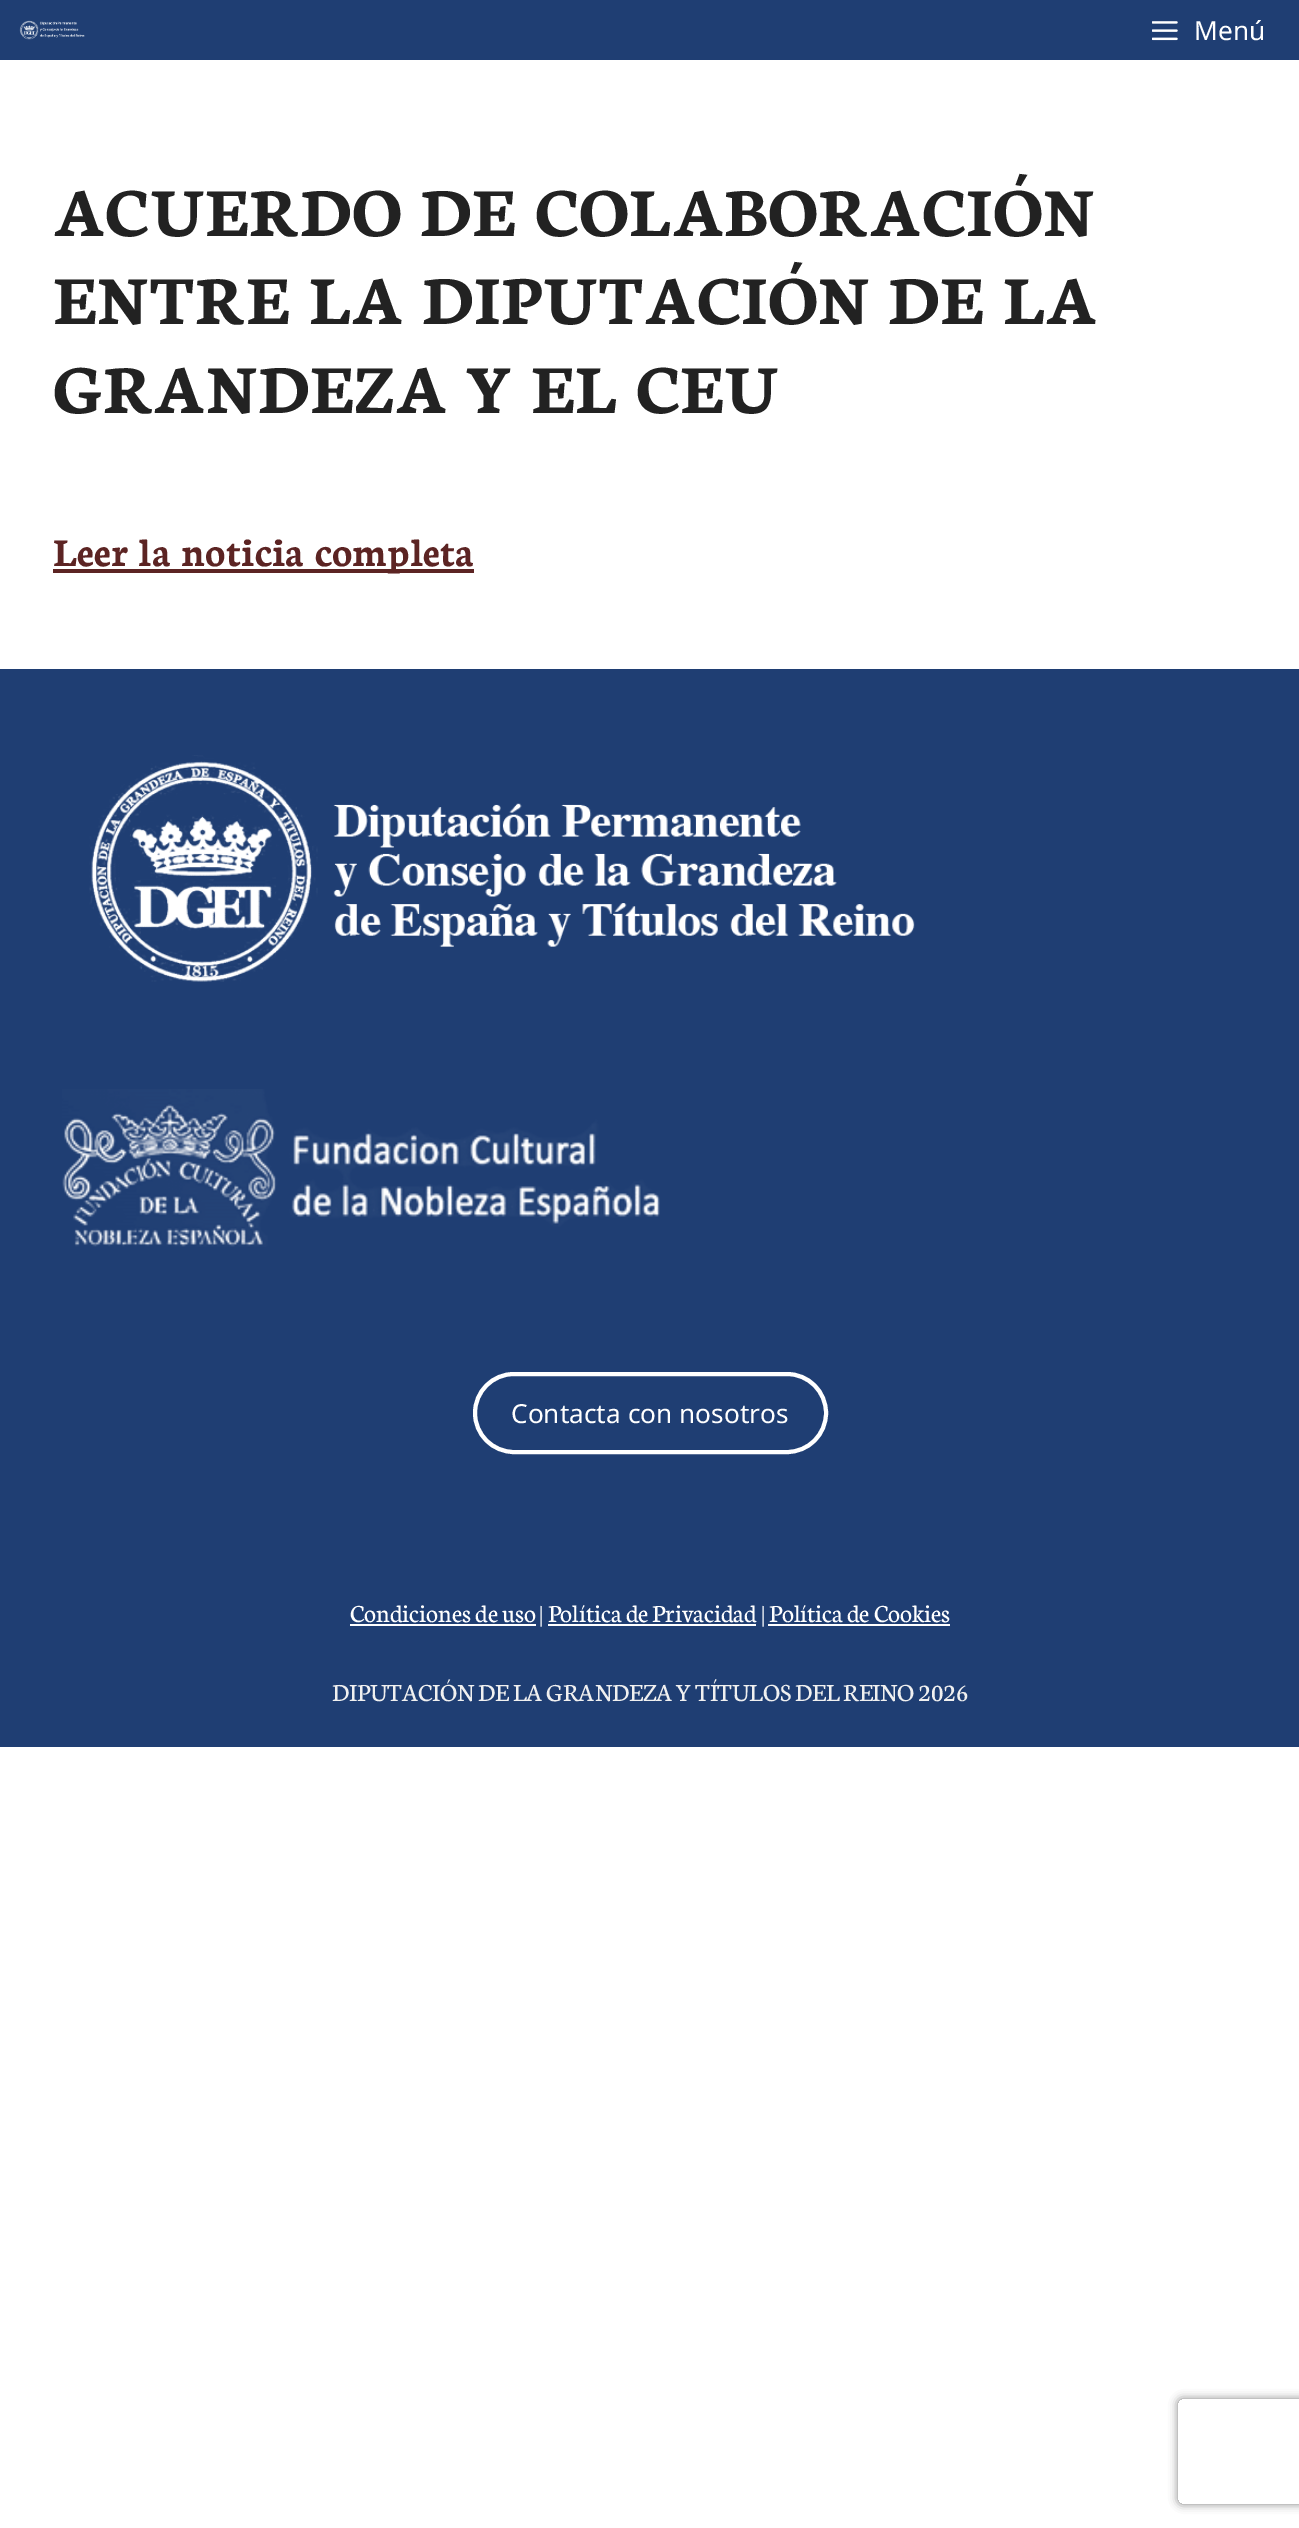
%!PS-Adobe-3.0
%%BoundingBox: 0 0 1299 2528
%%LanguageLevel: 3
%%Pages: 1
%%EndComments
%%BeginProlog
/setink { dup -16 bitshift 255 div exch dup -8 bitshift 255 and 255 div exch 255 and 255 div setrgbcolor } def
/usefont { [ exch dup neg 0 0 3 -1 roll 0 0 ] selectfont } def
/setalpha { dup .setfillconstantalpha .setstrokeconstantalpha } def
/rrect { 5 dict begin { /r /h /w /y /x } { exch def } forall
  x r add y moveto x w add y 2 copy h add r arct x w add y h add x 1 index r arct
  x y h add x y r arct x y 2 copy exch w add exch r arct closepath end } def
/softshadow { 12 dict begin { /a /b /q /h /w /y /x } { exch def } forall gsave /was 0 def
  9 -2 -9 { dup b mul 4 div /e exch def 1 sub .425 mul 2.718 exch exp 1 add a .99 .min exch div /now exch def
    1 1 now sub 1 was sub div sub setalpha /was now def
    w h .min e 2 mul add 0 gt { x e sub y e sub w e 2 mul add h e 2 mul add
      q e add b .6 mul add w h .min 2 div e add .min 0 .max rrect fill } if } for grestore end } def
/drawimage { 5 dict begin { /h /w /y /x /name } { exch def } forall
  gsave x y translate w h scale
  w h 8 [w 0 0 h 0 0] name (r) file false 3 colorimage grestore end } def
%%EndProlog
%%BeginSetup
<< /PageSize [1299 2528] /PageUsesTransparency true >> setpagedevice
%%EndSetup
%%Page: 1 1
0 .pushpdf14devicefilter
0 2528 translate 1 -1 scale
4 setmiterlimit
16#FFFFFF setink
0 0 1299 2528 rectfill
16#1F3E73 setink
0 0 1299 60 rectfill
(img1.raw) 19 20 66 20 drawimage
(img2.raw) 1152 21 26 20 drawimage
/NotoSans-Regular 26.25 usefont
16#FFFFFF setink
1194 40 moveto (Menú) show
/Neuton-Bold 73.5 usefont
16#222222 setink
[
    [(ACUERDO DE COLABORACIÓN) 53 236]
    [(ENTRE LA DIPUTACIÓN DE LA) 53 324]
    [(GRANDEZA Y EL CEU) 53 413]
] { aload pop moveto show } forall
16#5C2423 setink
53 569 421 4 rectfill
/Neuton-Bold 42 usefont
53 566 moveto (Leer la noticia completa) show
16#1F3E73 setink
0 669 1299 1078 rectfill
(img3.raw) 89 755 826 227 drawimage
(img4.raw) 62 1089 598 158 drawimage
16#FFFFFF setink
4 setlinewidth
475 1374 351 78 39 rrect stroke
/NotoSans-Regular 26.25 usefont
511 1423 moveto (Contacta con nosotros) show
350 1624 186 2 rectfill
/Neuton-Regular 26.25 usefont
350 1622 moveto (Condiciones de uso | Política de Privacidad | Política de Cookies) show
548 1624 208 2 rectfill
768 1624 182 2 rectfill
16#F0F0F0 setink
332 1701 moveto (DIPUTACIÓN DE LA GRANDEZA Y TÍTULOS DEL REINO 2026) show
gsave
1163 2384 moveto 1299 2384 lineto 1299 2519 lineto 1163 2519 lineto closepath 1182 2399 moveto 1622 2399 lineto 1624 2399 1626 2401 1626 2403 curveto 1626 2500 lineto 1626 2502 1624 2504 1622 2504 curveto 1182 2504 lineto 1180 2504 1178 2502 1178 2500 curveto 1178 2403 lineto 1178 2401 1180 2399 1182 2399 curveto closepath eoclip newpath
16#808080 setink
1178 2399 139 105 4 4.5 1 softshadow
grestore
.poppdf14devicefilter showpage
%%EOF
